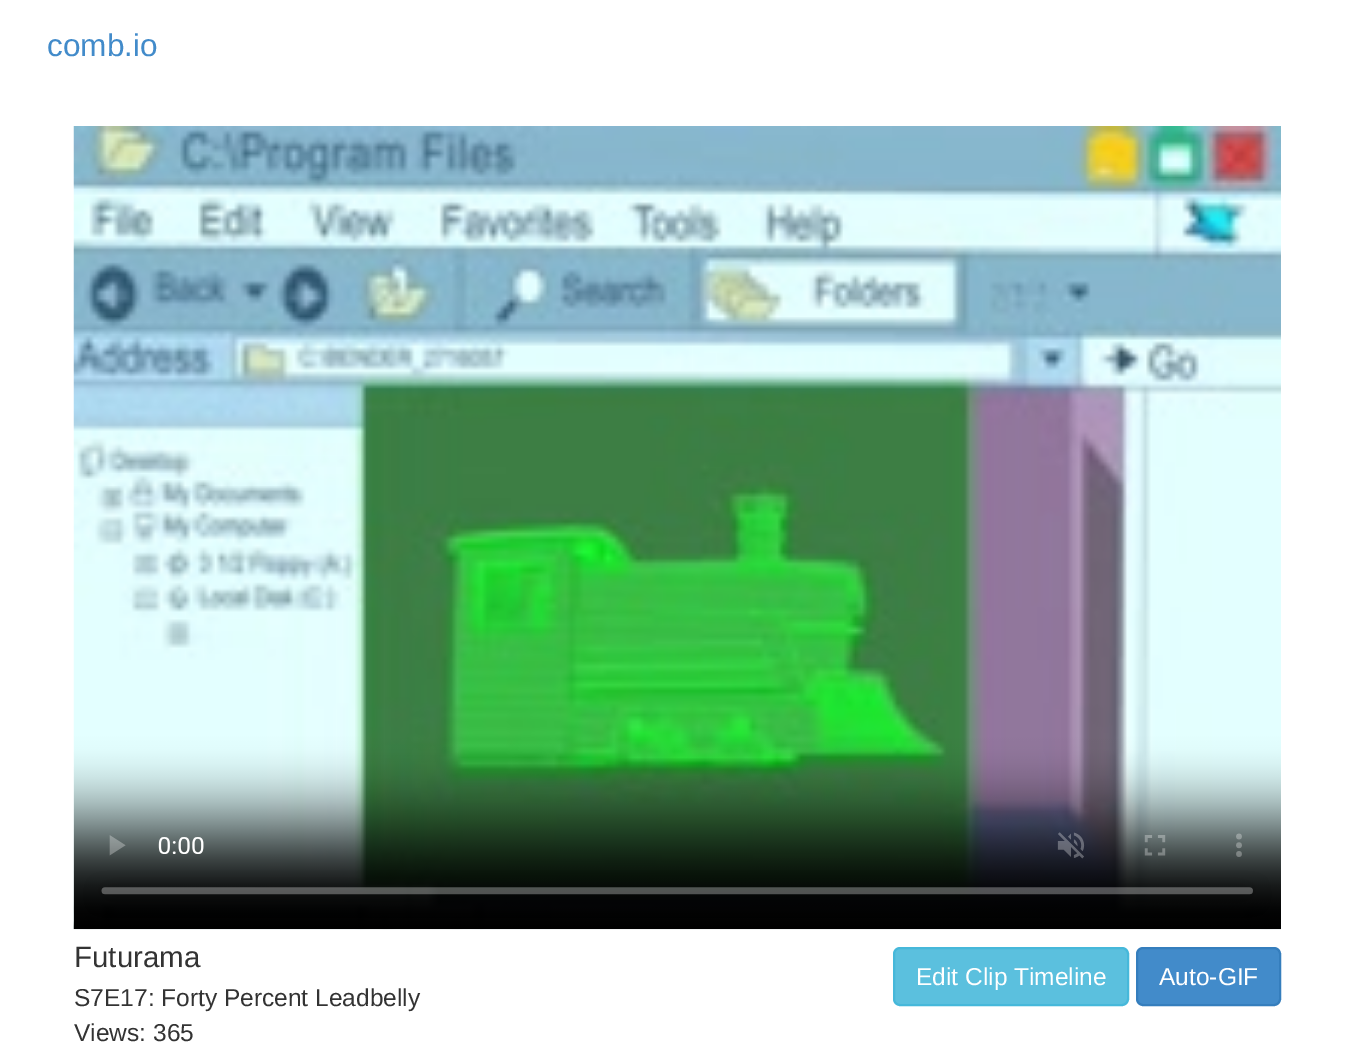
%!PS-Adobe-3.0
%%BoundingBox: 0 0 1353 1058
%%LanguageLevel: 3
%%Pages: 1
%%EndComments
%%BeginProlog
/setink { dup -16 bitshift 255 div exch dup -8 bitshift 255 and 255 div exch 255 and 255 div setrgbcolor } def
/usefont { [ exch dup neg 0 0 3 -1 roll 0 0 ] selectfont } def
/rrect { 5 dict begin { /r /h /w /y /x } { exch def } forall
  x r add y moveto x w add y 2 copy h add r arct x w add y h add x 1 index r arct
  x y h add x y r arct x y 2 copy exch w add exch r arct closepath end } def
/drawimage { 5 dict begin { /h /w /y /x /name } { exch def } forall
  gsave x y translate w h scale
  w h 8 [w 0 0 h 0 0] name (r) file false 3 colorimage grestore end } def
%%EndProlog
%%BeginSetup
<< /PageSize [1353 1058] >> setpagedevice
%%EndSetup
%%Page: 1 1
0 1058 translate 1 -1 scale
4 setmiterlimit
16#FFFFFF setink
0 0 1353 1058 rectfill
/LiberationSans-Regular 31.5 usefont
16#428BCA setink
47 56 moveto (comb.io) show
(img1.raw) 73 126 1208 804 drawimage
/LiberationSans-Regular 29.5 usefont
16#333333 setink
74 967 moveto (Futurama) show
/LiberationSans-Regular 24.5 usefont
74 1006 moveto (S7E17: Forty Percent Leadbelly) show
74 1041 moveto (Views: 365) show
16#5BC0DE setink
894 948 234 57 6 rrect gsave fill grestore
16#46B8DA setink
2 setlinewidth
stroke
16#FFFFFF setink
916 985 moveto (Edit Clip Timeline) show
16#428BCA setink
1137 948 143 57 6 rrect gsave fill grestore
16#357EBD setink
stroke
16#FFFFFF setink
1159 985 moveto (Auto-GIF) show
showpage
%%EOF
